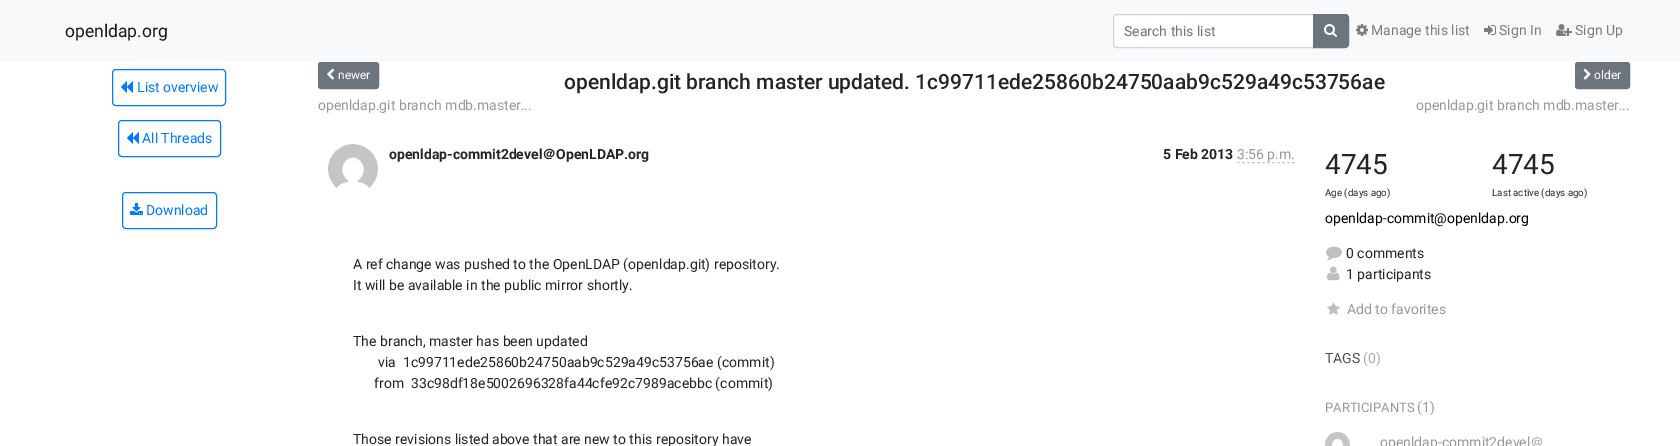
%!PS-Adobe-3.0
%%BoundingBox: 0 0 1680 446
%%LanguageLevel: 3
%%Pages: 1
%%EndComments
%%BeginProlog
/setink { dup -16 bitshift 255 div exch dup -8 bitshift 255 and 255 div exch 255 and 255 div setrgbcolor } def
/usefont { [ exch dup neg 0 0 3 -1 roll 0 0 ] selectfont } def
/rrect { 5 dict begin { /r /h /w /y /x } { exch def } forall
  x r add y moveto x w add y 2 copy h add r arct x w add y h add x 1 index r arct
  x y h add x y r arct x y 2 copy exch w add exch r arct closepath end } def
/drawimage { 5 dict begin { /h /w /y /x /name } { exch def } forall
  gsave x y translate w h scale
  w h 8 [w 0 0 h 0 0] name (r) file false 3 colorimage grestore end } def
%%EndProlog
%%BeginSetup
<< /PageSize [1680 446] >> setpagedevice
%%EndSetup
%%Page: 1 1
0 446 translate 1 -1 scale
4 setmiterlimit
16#FFFFFF setink
0 0 1680 446 rectfill
16#F8F9FA setink
0 0 1680 62 rectfill
/Roboto-Regular 17.5 usefont
16#191919 setink
65 37 moveto (openldap.org) show
16#FFFFFF setink
1116.5 15 moveto 1313 15 lineto 1313 47 lineto 1116.5 47 lineto 1115 47 1114 46 1114 44.5 curveto 1114 17.5 lineto 1114 16 1115 15 1116.5 15 curveto closepath fill
16#CED4DA setink
1117 14.5 moveto 1313.5 14.5 lineto 1313.5 47.5 lineto 1117 47.5 lineto 1115 47.5 1113.5 46 1113.5 44 curveto 1113.5 18 lineto 1113.5 16 1115 14.5 1117 14.5 curveto closepath stroke
/Roboto-Regular 14 usefont
16#6C757D setink
1124 36 moveto (Search this list) show
1313.5 14.5 moveto 1345 14.5 lineto 1347 14.5 1348.5 16 1348.5 18 curveto 1348.5 44 lineto 1348.5 46 1347 47.5 1345 47.5 curveto 1313.5 47.5 lineto closepath gsave fill grestore
stroke
(img1.raw) 1324 24 13 13 drawimage
(img2.raw) 1356 24 12 12 drawimage
16#7C7D7D setink
1371 35 moveto (Manage this list) show
(img3.raw) 1484 25 12 10 drawimage
1499 35 moveto (Sign In) show
(img4.raw) 1556 24 16 12 drawimage
1575 35 moveto (Sign Up) show
16#007BFF setink
112.5 69.5 113 36 3.5 rrect stroke
(img5.raw) 121 81 12 12 drawimage
137 92 moveto (List overview) show
118.5 120.5 102 36 3.5 rrect stroke
(img5.raw) 127 132 12 12 drawimage
142 143 moveto (All Threads) show
122.5 192.5 94 36 3.5 rrect stroke
(img6.raw) 130 203 13 12 drawimage
146 215 moveto (Download) show
16#6C757D setink
318.5 62.5 60 26 2.5 rrect gsave fill grestore
stroke
(img7.raw) 327 68 8 12 drawimage
/Roboto-Regular 12 usefont
16#FFFFFF setink
338 79 moveto (newer) show
/Roboto-Medium 21 usefont
16#212529 setink
564 89 moveto (openldap.git branch master updated. 1c99711ede25860b24750aab9c529a49c53756ae) show
16#6C757D setink
1575.5 62.5 54 26 2.5 rrect gsave fill grestore
stroke
(img8.raw) 1583 68 8 12 drawimage
/Roboto-Regular 12 usefont
16#FFFFFF setink
1594 79 moveto (older) show
/Roboto-Regular 14 usefont
16#999999 setink
318 110 moveto (openldap.git branch mdb.master...) show
1416 110 moveto (openldap.git branch mdb.master...) show
(img9.raw) 328 144 50 44 drawimage
/Roboto-Bold 14 usefont
16#212529 setink
389 159 moveto (openldap-commit2devel) show
/WenQuanYiZenHei-Bold 14 usefont
542 159 moveto (＠) show
/Roboto-Bold 14 usefont
556 159 moveto (OpenLDAP.org) show
1163 159 moveto (5 Feb 2013) show
/Roboto-Regular 14 usefont
16#999999 setink
1237 159 moveto (3:56 p.m.) show
16#CCCCCC setink
[3 2] 0 setdash
1237 162.5 moveto 1295 162.5 lineto stroke
16#212529 setink
[
    [(A ref change was pushed to the OpenLDAP \(openldap.git\) repository.) 353 269]
    [(It will be available in the public mirror shortly.) 353 290]
    [(The branch, master has been updated) 353 346]
    [(via  1c99711ede25860b24750aab9c529a49c53756ae \(commit\)) 378 367]
    [(from  33c98df18e5002696328fa44cfe92c7989acebbc \(commit\)) 374 388]
    [(Those revisions listed above that are new to this repository have) 353 444]
] { aload pop moveto show } forall
/Roboto-Regular 28 usefont
1325 174 moveto (4745) show
/Roboto-Regular 9.75 usefont
1325 196 moveto (Age \(days ago\)) show
/Roboto-Regular 28 usefont
1492 174 moveto (4745) show
/Roboto-Regular 9.75 usefont
1492 196 moveto (Last active \(days ago\)) show
/Roboto-Regular 14 usefont
16#000000 setink
1325 223 moveto (openldap-commit@openldap.org) show
(img10.raw) 1326 246 16 15 drawimage
16#212529 setink
1346 258 moveto (0 comments) show
(img11.raw) 1327 266 13 15 drawimage
1346 279 moveto (1 participants) show
(img12.raw) 1327 302 13 13 drawimage
16#999999 setink
1347 314 moveto (Add to favorites) show
16#4D4D4D setink
1325 363 moveto (TAGS) show
16#A7A9AC setink
1363 363 moveto (\(0\)) show
/Roboto-Regular 13 usefont
16#999999 setink
1325 412 moveto (PARTICIPANTS) show
/Roboto-Regular 14 usefont
1417 412 moveto (\(1\)) show
(img13.raw) 1325 432 25 14 drawimage
1380 447 moveto (openldap-commit2devel) show
/WenQuanYiZenHei-Medium 14 usefont
1530 447 moveto (＠) show
showpage
%%EOF
